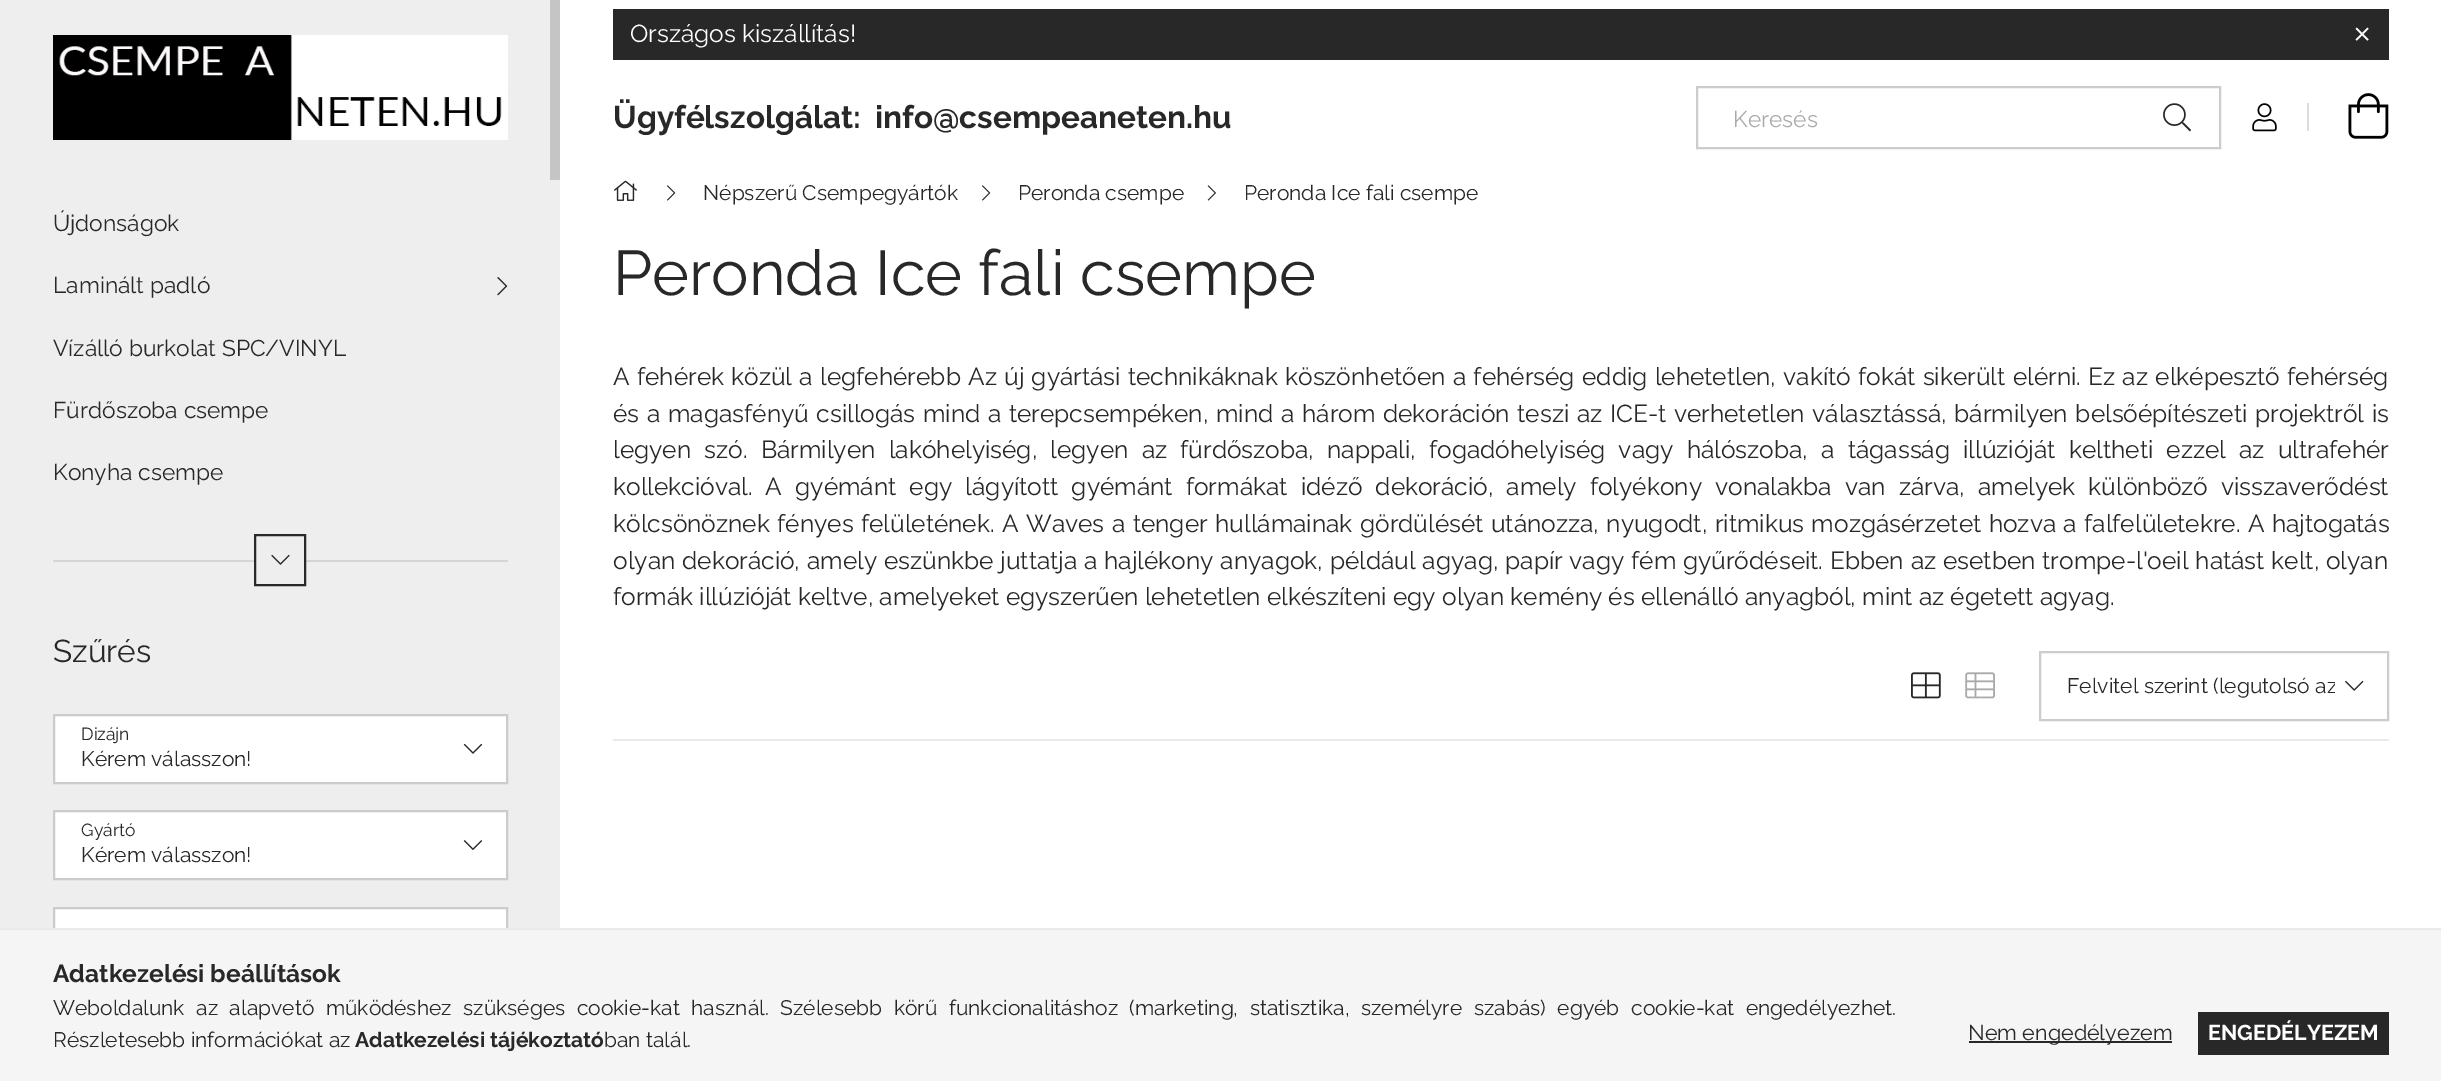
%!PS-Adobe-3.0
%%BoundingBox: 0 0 2441 1081
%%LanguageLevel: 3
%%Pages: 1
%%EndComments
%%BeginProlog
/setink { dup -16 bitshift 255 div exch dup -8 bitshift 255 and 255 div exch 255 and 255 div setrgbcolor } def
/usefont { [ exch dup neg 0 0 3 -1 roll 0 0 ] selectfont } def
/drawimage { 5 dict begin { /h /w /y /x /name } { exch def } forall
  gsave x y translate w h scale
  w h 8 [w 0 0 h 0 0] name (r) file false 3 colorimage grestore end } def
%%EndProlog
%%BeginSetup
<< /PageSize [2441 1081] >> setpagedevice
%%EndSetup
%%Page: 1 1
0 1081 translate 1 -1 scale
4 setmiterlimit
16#FFFFFF setink
0 0 2441 1081 rectfill
16#EEEEEE setink
0 0 560 928 rectfill
16#C5C5C5 setink
550 0 10 180 rectfill
(img1.raw) 53 35 455 105 drawimage
/Raleway-Regular 22.75 usefont
16#282828 setink
53 231 moveto (Újdonságok) show
53 293 moveto (Laminált padló) show
(img2.raw) 497 277 11 19 drawimage
[
    [(Vízálló burkolat SPC/VINYL) 53 356]
    [(Fürdőszoba csempe) 53 418]
    [(Konyha csempe) 53 480]
] { aload pop moveto show } forall
16#D5D5D5 setink
53 560 455 2 rectfill
16#EEEEEE setink
256 560 48 2 rectfill
16#282828 setink
2 setlinewidth
255 535 50 50 rectstroke
(img3.raw) 271 554 19 11 drawimage
/Raleway-Regular 31.5 usefont
53 662 moveto (Szűrés) show
16#FFFFFF setink
54 715 moveto 507 715 lineto 507 783 lineto 54 783 lineto closepath gsave fill grestore
16#CCCCCC setink
stroke
/Raleway-Regular 17.5 usefont
16#282828 setink
81 740 moveto (Dizájn) show
(img4.raw) 463 743 20 11 drawimage
/Raleway-Regular 21 usefont
81 766 moveto (Kérem válasszon!) show
16#FFFFFF setink
54 811 moveto 507 811 lineto 507 879 lineto 54 879 lineto closepath gsave fill grestore
16#CCCCCC setink
stroke
/Raleway-Regular 17.5 usefont
16#282828 setink
81 836 moveto (Gyártó) show
(img5.raw) 463 840 20 10 drawimage
/Raleway-Regular 21 usefont
81 862 moveto (Kérem válasszon!) show
16#FFFFFF setink
55 909 451 19 rectfill
16#CCCCCC setink
54 908 453 68 rectstroke
16#282828 setink
613 9 1776 51 rectfill
/Raleway-Regular 24.5 usefont
16#FFFFFF setink
630 42 moveto (Országos kiszállítás!) show
(img6.raw) 2355 27 14 14 drawimage
/Raleway-Bold 31.5 usefont
16#282828 setink
613 128 moveto (Ügyfélszolgálat:) show
875 128 moveto (info@csempeaneten.hu) show
16#CCCCCC setink
1697 87 523 61 rectstroke
/Raleway-Regular 22.75 usefont
16#AAAAAA setink
1733 127 moveto (Keresés) show
(img7.raw) 2163 103 28 29 drawimage
(img8.raw) 2252 103 25 29 drawimage
16#DDDDDD setink
2307 103 2 28 rectfill
(img9.raw) 2348 93 41 46 drawimage
(img10.raw) 614 180 23 21 drawimage
(img11.raw) 667 185 9 16 drawimage
/Raleway-Regular 21 usefont
16#282828 setink
703 200 moveto (Népszerű Csempegyártók) show
(img11.raw) 982 185 9 16 drawimage
1018 200 moveto (Peronda csempe) show
(img12.raw) 1207 185 9 16 drawimage
1244 200 moveto (Peronda Ice fali csempe) show
/Raleway-Regular 63 usefont
613 295 moveto (Peronda Ice fali csempe) show
/Raleway-Regular 24.5 usefont
613 385 moveto 1.1 0 32 (A fehérek közül a legfehérebb Az új gyártási technikáknak köszönhetően a fehérség eddig lehetetlen, vakító fokát sikerült elérni. Ez az elképesztő fehérség) widthshow
613 422 moveto 1.4 0 32 (és a magasfényű csillogás mind a terepcsempéken, mind a három dekoráción teszi az ICE-t verhetetlen választássá, bármilyen belsőépítészeti projektről is) widthshow
613 458 moveto 7 0 32 (legyen szó. Bármilyen lakóhelyiség, legyen az fürdőszoba, nappali, fogadóhelyiség vagy hálószoba, a tágasság illúzióját keltheti ezzel az ultrafehér) widthshow
613 495 moveto 6.9 0 32 (kollekcióval. A gyémánt egy lágyított gyémánt formákat idéző dekoráció, amely folyékony vonalakba van zárva, amelyek különböző visszaverődést) widthshow
613 532 moveto 1.25 0 32 (kölcsönöznek fényes felületének. A Waves a tenger hullámainak gördülését utánozza, nyugodt, ritmikus mozgásérzetet hozva a falfelületekre. A hajtogatás) widthshow
613 569 moveto 0.6 0 32 (olyan dekoráció, amely eszünkbe juttatja a hajlékony anyagok, például agyag, papír vagy fém gyűrődéseit. Ebben az esetben trompe-l'oeil hatást kelt, olyan) widthshow
613 605 moveto (formák illúzióját keltve, amelyeket egyszerűen lehetetlen elkészíteni egy olyan kemény és ellenálló anyagból, mint az égetett agyag.) show
16#EAEAEA setink
613 739 1776 2 rectfill
(img13.raw) 1911 672 30 27 drawimage
(img14.raw) 1965 672 30 27 drawimage
16#CCCCCC setink
2040 652 348 68 rectstroke
gsave
2067 670 268 32 rectclip
/Raleway-Regular 21 usefont
16#282828 setink
2067 693 moveto (Felvitel szerint \(legutolsó az) show
grestore
(img15.raw) 2345 680 19 11 drawimage
16#F5F5F5 setink
0 930 2441 151 rectfill
16#EAEAEA setink
0 928 2441 2 rectfill
/Raleway-Bold 24.5 usefont
16#282828 setink
53 982 moveto (Adatkezelési beállítások) show
/Raleway-Regular 21 usefont
53 1015 moveto 6.25 0 32 (Weboldalunk az alapvető működéshez szükséges cookie-kat használ. Szélesebb körű funkcionalitáshoz \(marketing, statisztika, személyre szabás\) egyéb cookie-kat engedélyezhet.) widthshow
53 1047 moveto (Részletesebb információkat az) show
/Raleway-Bold 21 usefont
355 1047 moveto (Adatkezelési tájékoztató) show
/Raleway-Regular 21 usefont
604 1047 moveto (ban talál.) show
1969 1041 203 2 rectfill
/Raleway-Regular 21.5 usefont
1968 1040 moveto (Nem engedélyezem) show
2198 1012 191 43 rectfill
/Raleway-Bold 21.5 usefont
16#FFFFFF setink
2208 1040 moveto (ENGEDÉLYEZEM) show
showpage
%%EOF
